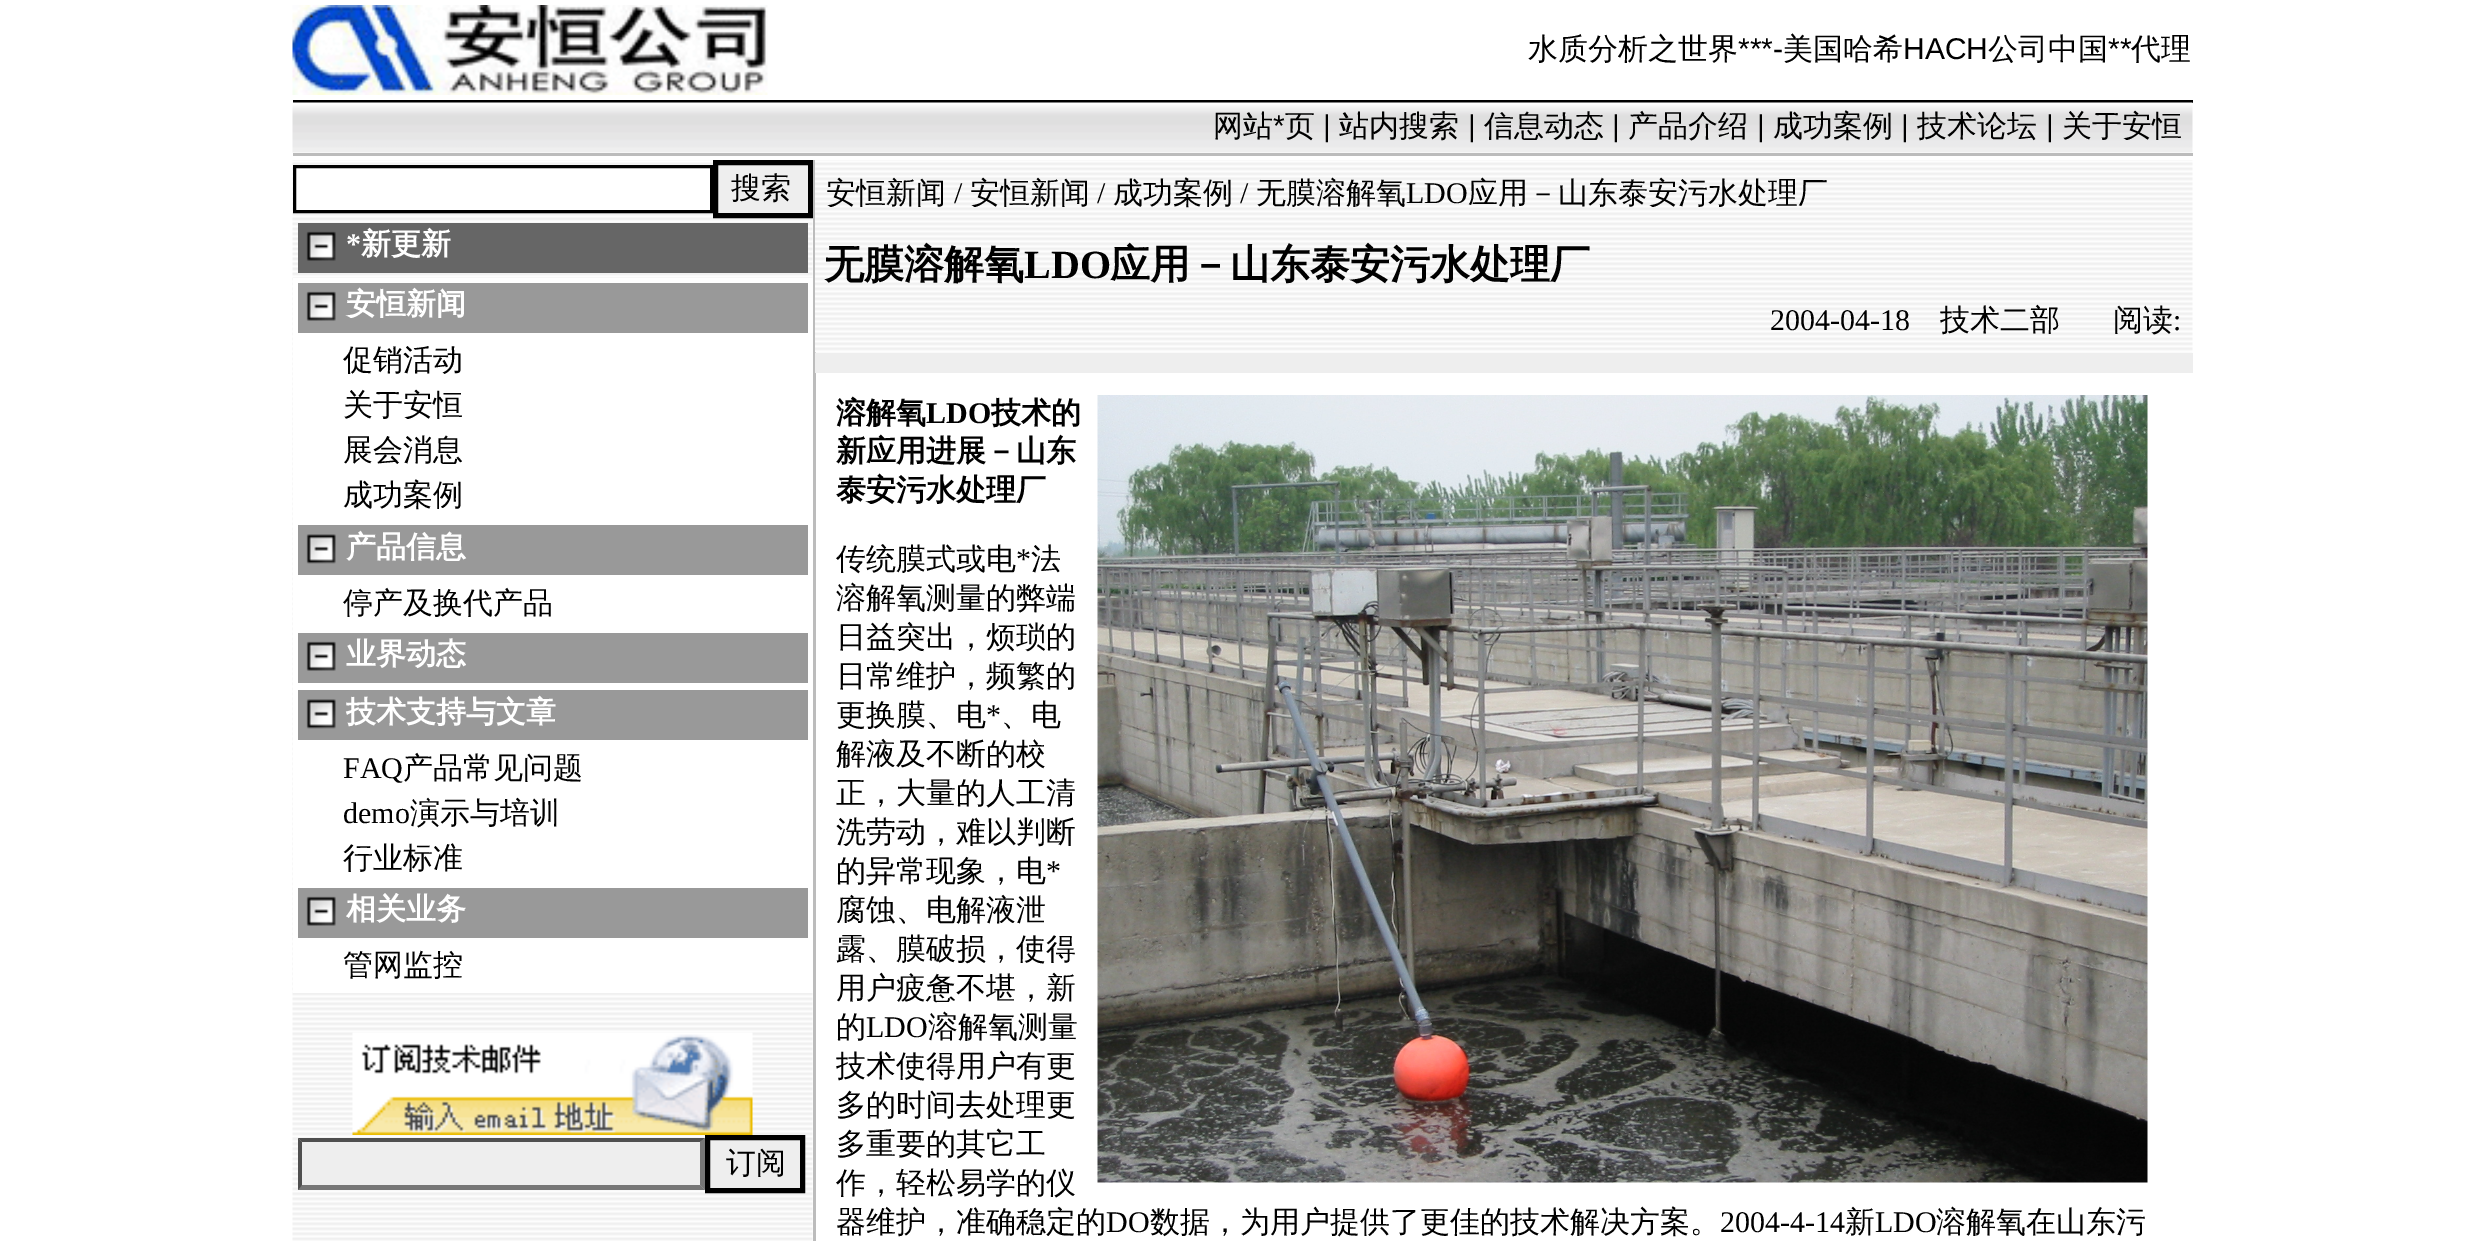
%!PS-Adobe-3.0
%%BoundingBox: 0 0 2482 1241
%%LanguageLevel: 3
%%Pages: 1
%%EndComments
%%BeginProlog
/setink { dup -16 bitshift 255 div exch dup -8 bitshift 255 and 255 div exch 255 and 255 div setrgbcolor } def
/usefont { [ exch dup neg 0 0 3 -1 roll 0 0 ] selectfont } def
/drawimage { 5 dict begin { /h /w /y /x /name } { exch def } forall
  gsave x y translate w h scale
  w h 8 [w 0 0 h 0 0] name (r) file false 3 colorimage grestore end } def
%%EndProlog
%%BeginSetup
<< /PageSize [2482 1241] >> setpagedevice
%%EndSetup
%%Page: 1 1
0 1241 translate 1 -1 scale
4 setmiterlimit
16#FFFFFF setink
0 0 2482 1241 rectfill
(img1.raw) 292 5 476 90 drawimage
/WenQuanYiZenHei-Medium 30 usefont
16#000000 setink
1528 59 moveto (水质分析之世界) show
/LiberationSans-Regular 30 usefont
1738 59 moveto (***-) show
/WenQuanYiZenHei-Medium 30 usefont
1783 59 moveto (美国哈希) show
/LiberationSans-Regular 30 usefont
1903 59 moveto (HACH) show
/WenQuanYiZenHei-Medium 30 usefont
1988 59 moveto (公司中国) show
/LiberationSans-Regular 30 usefont
2108 59 moveto (**) show
/WenQuanYiZenHei-Medium 30 usefont
2131 59 moveto (代理) show
293 100 1900 3 rectfill
(img2.raw) 292 102 1901 51 drawimage
1213 136 moveto (网站) show
/LiberationSans-Regular 30 usefont
1273 136 moveto (*) show
/WenQuanYiZenHei-Medium 30 usefont
1285 136 moveto (页) show
/LiberationSans-Regular 30 usefont
1323 136 moveto (|) show
/WenQuanYiZenHei-Medium 30 usefont
1339 136 moveto (站内搜索) show
/LiberationSans-Regular 30 usefont
1468 136 moveto (|) show
/WenQuanYiZenHei-Medium 30 usefont
1484 136 moveto (信息动态) show
/LiberationSans-Regular 30 usefont
1612 136 moveto (|) show
/WenQuanYiZenHei-Medium 30 usefont
1628 136 moveto (产品介绍) show
/LiberationSans-Regular 30 usefont
1757 136 moveto (|) show
/WenQuanYiZenHei-Medium 30 usefont
1773 136 moveto (成功案例) show
/LiberationSans-Regular 30 usefont
1901 136 moveto (|) show
/WenQuanYiZenHei-Medium 30 usefont
1917 136 moveto (技术论坛) show
/LiberationSans-Regular 30 usefont
2046 136 moveto (|) show
/WenQuanYiZenHei-Medium 30 usefont
2062 136 moveto (关于安恒) show
16#BCBCBC setink
293 153 1900 3 rectfill
(img3.raw) 292 160 521 1081 drawimage
16#FFFFFF setink
294.5 166.5 moveto 711.5 166.5 lineto 711.5 211.5 lineto 294.5 211.5 lineto closepath gsave fill grestore
16#000000 setink
3 setlinewidth
stroke
16#EEEEEE setink
715.5 162.5 moveto 810.5 162.5 lineto 810.5 215.5 lineto 715.5 215.5 lineto closepath gsave fill grestore
16#000000 setink
5 setlinewidth
stroke
731 198 moveto (搜索) show
16#666666 setink
298 223 510 50 rectfill
(img4.raw) 306 231 30 30 drawimage
/LiberationSerif-Bold 30 usefont
16#FFFFFF setink
346 254 moveto (*) show
/WenQuanYiZenHei-Bold 30 usefont
361 254 moveto (新更新) show
293 278 520 715 rectfill
16#999999 setink
298 283 510 50 rectfill
(img5.raw) 306 291 30 30 drawimage
16#FFFFFF setink
346 314 moveto (安恒新闻) show
/WenQuanYiZenHei-Medium 30 usefont
16#000000 setink
[
    [(促销活动) 343 370]
    [(关于安恒) 343 415]
    [(展会消息) 343 460]
    [(成功案例) 343 505]
] { aload pop moveto show } forall
16#999999 setink
298 525 510 50 rectfill
(img6.raw) 306 534 30 30 drawimage
/WenQuanYiZenHei-Bold 30 usefont
16#FFFFFF setink
346 557 moveto (产品信息) show
/WenQuanYiZenHei-Medium 30 usefont
16#000000 setink
343 613 moveto (停产及换代产品) show
16#999999 setink
298 633 510 50 rectfill
(img7.raw) 306 641 30 30 drawimage
/WenQuanYiZenHei-Bold 30 usefont
16#FFFFFF setink
346 664 moveto (业界动态) show
16#999999 setink
298 690 510 50 rectfill
(img6.raw) 306 699 30 30 drawimage
16#FFFFFF setink
346 722 moveto (技术支持与文章) show
/LiberationSerif-Regular 30 usefont
16#000000 setink
343 778 moveto (FAQ) show
/WenQuanYiZenHei-Medium 30 usefont
403 778 moveto (产品常见问题) show
/LiberationSerif-Regular 30 usefont
343 823 moveto (demo) show
/WenQuanYiZenHei-Medium 30 usefont
410 823 moveto (演示与培训) show
343 868 moveto (行业标准) show
16#999999 setink
298 888 510 50 rectfill
(img7.raw) 306 896 30 30 drawimage
/WenQuanYiZenHei-Bold 30 usefont
16#FFFFFF setink
346 919 moveto (相关业务) show
/WenQuanYiZenHei-Medium 30 usefont
16#000000 setink
343 975 moveto (管网监控) show
(img8.raw) 352 1032 401 103 drawimage
16#EEEEEE setink
298 1139 407 51 rectfill
16#4F4F4F setink
298 1138 moveto 705 1138 lineto 700 1142 lineto 302 1142 lineto closepath fill
16#767676 setink
705 1138 moveto 705 1190 lineto 700 1185 lineto 700 1142 lineto closepath fill
705 1190 moveto 298 1190 lineto 302 1185 lineto 700 1185 lineto closepath fill
16#4F4F4F setink
298 1190 moveto 298 1138 lineto 302 1142 lineto 302 1185 lineto closepath fill
16#EEEEEE setink
707.5 1137.5 moveto 802.5 1137.5 lineto 802.5 1190.5 lineto 707.5 1190.5 lineto closepath gsave fill grestore
16#000000 setink
stroke
726 1173 moveto (订阅) show
16#BCBCBC setink
813 160 3 1081 rectfill
(img9.raw) 815 160 1378 193 drawimage
16#000000 setink
826 203 moveto (安恒新闻) show
/LiberationSerif-Regular 30 usefont
954 203 moveto (/) show
/WenQuanYiZenHei-Medium 30 usefont
970 203 moveto (安恒新闻) show
/LiberationSerif-Regular 30 usefont
1097 203 moveto (/) show
/WenQuanYiZenHei-Medium 30 usefont
1113 203 moveto (成功案例) show
/LiberationSerif-Regular 30 usefont
1240 203 moveto (/) show
/WenQuanYiZenHei-Medium 30 usefont
1256 203 moveto (无膜溶解氧) show
/LiberationSerif-Regular 30 usefont
1406 203 moveto (LDO) show
/WenQuanYiZenHei-Medium 30 usefont
1468 203 moveto (应用－山东泰安污水处理厂) show
/WenQuanYiZenHei-Bold 40 usefont
824 278 moveto (无膜溶解氧) show
/LiberationSerif-Bold 40 usefont
1024 278 moveto (LDO) show
/WenQuanYiZenHei-Bold 40 usefont
1110 278 moveto (应用－山东泰安污水处理厂) show
/LiberationSerif-Regular 30 usefont
1770 330 moveto (2004-04-18) show
/WenQuanYiZenHei-Medium 30 usefont
1940 330 moveto (技术二部) show
2113 330 moveto (阅读) show
/LiberationSerif-Regular 30 usefont
2173 330 moveto (:) show
16#EEEEEE setink
815 353 1378 20 rectfill
/WenQuanYiZenHei-Bold 30 usefont
16#000000 setink
836 423 moveto (溶解氧) show
/LiberationSerif-Bold 30 usefont
926 423 moveto (LDO) show
/WenQuanYiZenHei-Bold 30 usefont
991 423 moveto (技术的) show
(img10.raw) 1097 395 1051 788 drawimage
836 461 moveto (新应用进展－山东) show
836 500 moveto (泰安污水处理厂) show
/WenQuanYiZenHei-Medium 30 usefont
836 569 moveto (传统膜式或电) show
/LiberationSerif-Regular 30 usefont
1016 569 moveto (*) show
/WenQuanYiZenHei-Medium 30 usefont
[
    [(法) 1031 569]
    [(溶解氧测量的弊端) 836 608]
    [(日益突出，烦琐的) 836 647]
    [(日常维护，频繁的) 836 686]
    [(更换膜、电) 836 725]
] { aload pop moveto show } forall
/LiberationSerif-Regular 30 usefont
986 725 moveto (*) show
/WenQuanYiZenHei-Medium 30 usefont
[
    [(、电) 1001 725]
    [(解液及不断的校) 836 764]
    [(正，大量的人工清) 836 803]
    [(洗劳动，难以判断) 836 842]
    [(的异常现象，电) 836 881]
] { aload pop moveto show } forall
/LiberationSerif-Regular 30 usefont
1046 881 moveto (*) show
/WenQuanYiZenHei-Medium 30 usefont
[
    [(腐蚀、电解液泄) 836 920]
    [(露、膜破损，使得) 836 959]
    [(用户疲惫不堪，新) 836 998]
    [(的) 836 1037]
] { aload pop moveto show } forall
/LiberationSerif-Regular 30 usefont
866 1037 moveto (LDO) show
/WenQuanYiZenHei-Medium 30 usefont
[
    [(溶解氧测量) 928 1037]
    [(技术使得用户有更) 836 1076]
    [(多的时间去处理更) 836 1115]
    [(多重要的其它工) 836 1154]
    [(作，轻松易学的仪) 836 1193]
    [(器维护，准确稳定的) 836 1232]
] { aload pop moveto show } forall
/LiberationSerif-Regular 30 usefont
1106 1232 moveto (DO) show
/WenQuanYiZenHei-Medium 30 usefont
1150 1232 moveto (数据，为用户提供了更佳的技术解决方案。) show
/LiberationSerif-Regular 30 usefont
1720 1232 moveto (2004-4-14) show
/WenQuanYiZenHei-Medium 30 usefont
1845 1232 moveto (新) show
/LiberationSerif-Regular 30 usefont
1875 1232 moveto (LDO) show
/WenQuanYiZenHei-Medium 30 usefont
1936 1232 moveto (溶解氧在山东污) show
showpage
%%EOF
